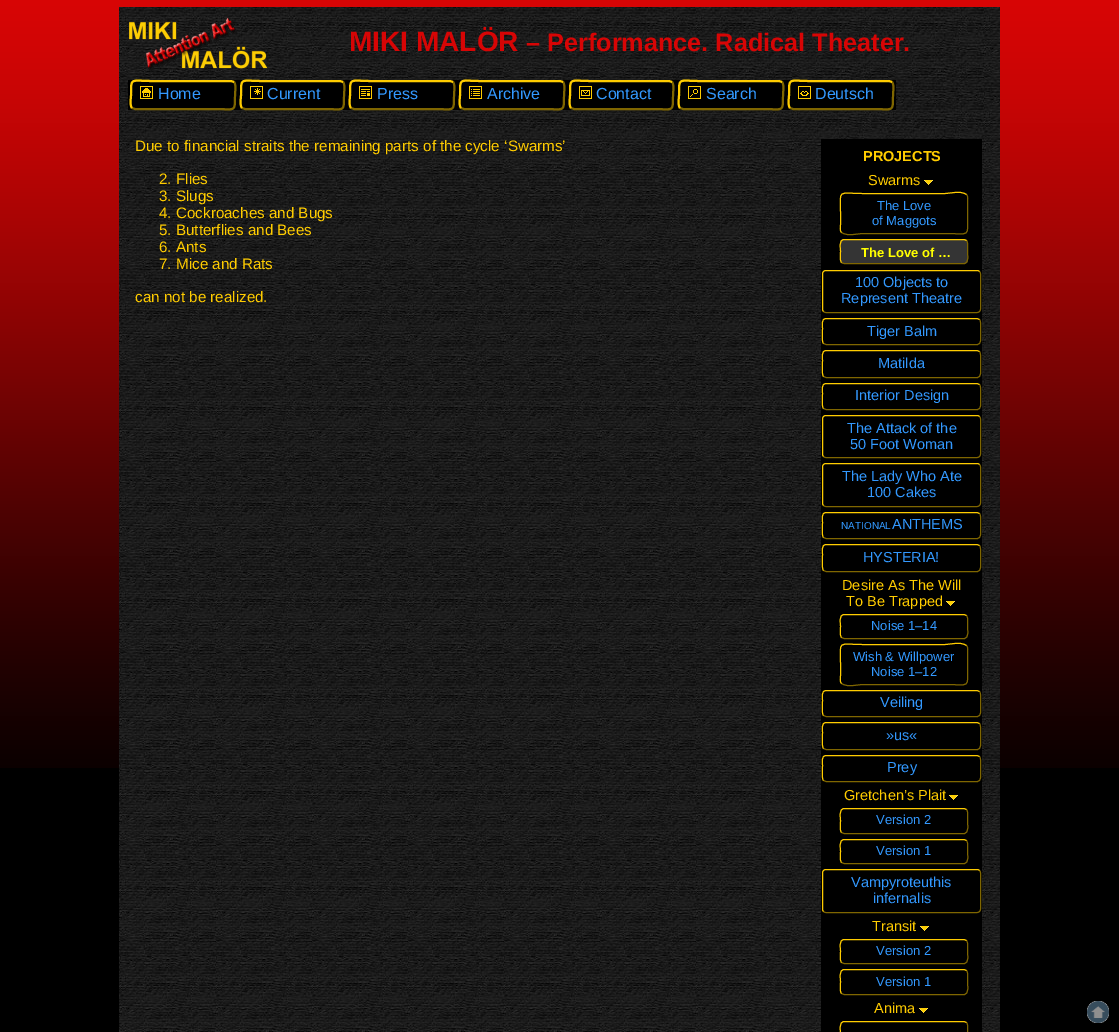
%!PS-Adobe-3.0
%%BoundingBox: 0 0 1119 1032
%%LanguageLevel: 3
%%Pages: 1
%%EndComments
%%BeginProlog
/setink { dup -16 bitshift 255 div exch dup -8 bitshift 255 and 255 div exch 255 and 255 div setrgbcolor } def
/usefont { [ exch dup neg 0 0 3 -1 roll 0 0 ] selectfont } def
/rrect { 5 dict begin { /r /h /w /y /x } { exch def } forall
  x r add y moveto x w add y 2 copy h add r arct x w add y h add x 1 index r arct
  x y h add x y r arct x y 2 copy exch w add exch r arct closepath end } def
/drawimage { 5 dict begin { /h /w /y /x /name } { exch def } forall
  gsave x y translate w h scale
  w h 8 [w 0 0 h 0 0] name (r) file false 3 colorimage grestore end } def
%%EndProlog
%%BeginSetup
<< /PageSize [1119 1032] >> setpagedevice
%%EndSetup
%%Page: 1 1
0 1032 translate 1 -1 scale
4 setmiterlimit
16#000000 setink
0 0 1119 1032 rectfill
(img1.raw) 0 0 1119 768 drawimage
(img2.raw) 119 7 881 1025 drawimage
(img3.raw) 129 17 139 53 drawimage
/LiberationSans-Bold 28 usefont
16#D70505 setink
349 51 moveto (MIKI MALÖR) show
/LiberationSans-Bold 25.25 usefont
526 51 moveto (– Performance. Radical Theater.) show
16#000000 setink
128 80 768 30 rectfill
16#7F6600 setink
2 setlinewidth
234 82 moveto 236.5 84.5 235 92 235 95 curveto 235 113 235.5 109 215 109 curveto 135 109 lineto 132 108 lineto stroke
16#FFCC00 setink
132 108 moveto 129.5 105.5 131 98 131 95 curveto 131 77 130.5 81 151 81 curveto 231 81 lineto 234 82 lineto stroke
(img4.raw) 140 86 13 13 drawimage
/LiberationSans-Regular 16 usefont
16#3399FF setink
158 99 moveto (Home) show
16#7F6600 setink
343 82 moveto 345.5 84.5 344 92 344 95 curveto 344 113 344.5 109 324 109 curveto 245 109 lineto 242 108 lineto stroke
16#FFCC00 setink
242 108 moveto 239.5 105.5 241 98 241 95 curveto 241 77 240.5 81 261 81 curveto 340 81 lineto 343 82 lineto stroke
(img5.raw) 250 86 13 13 drawimage
16#3399FF setink
267 99 moveto (Current) show
16#7F6600 setink
453 82 moveto 455.5 84.5 454 92 454 95 curveto 454 113 454.5 109 434 109 curveto 354 109 lineto 351 108 lineto stroke
16#FFCC00 setink
351 108 moveto 348.5 105.5 350 98 350 95 curveto 350 77 349.5 81 370 81 curveto 450 81 lineto 453 82 lineto stroke
(img6.raw) 359 86 13 13 drawimage
16#3399FF setink
377 99 moveto (Press) show
16#7F6600 setink
563 82 moveto 565.5 84.5 564 92 564 95 curveto 564 113 564.5 109 544 109 curveto 464 109 lineto 461 108 lineto stroke
16#FFCC00 setink
461 108 moveto 458.5 105.5 460 98 460 95 curveto 460 77 459.5 81 480 81 curveto 560 81 lineto 563 82 lineto stroke
(img7.raw) 469 86 13 13 drawimage
16#3399FF setink
487 99 moveto (Archive) show
16#7F6600 setink
672 82 moveto 674.5 84.5 673 92 673 95 curveto 673 113 673.5 109 653 109 curveto 574 109 lineto 571 108 lineto stroke
16#FFCC00 setink
571 108 moveto 568.5 105.5 570 98 570 95 curveto 570 77 569.5 81 590 81 curveto 669 81 lineto 672 82 lineto stroke
(img8.raw) 579 86 13 13 drawimage
16#3399FF setink
596 99 moveto (Contact) show
16#7F6600 setink
782 82 moveto 784.5 84.5 783 92 783 95 curveto 783 113 783.5 109 763 109 curveto 683 109 lineto 680 108 lineto stroke
16#FFCC00 setink
680 108 moveto 677.5 105.5 679 98 679 95 curveto 679 77 678.5 81 699 81 curveto 779 81 lineto 782 82 lineto stroke
(img9.raw) 688 86 13 13 drawimage
16#3399FF setink
706 99 moveto (Search) show
16#7F6600 setink
892 82 moveto 894.5 84.5 893 92 893 95 curveto 893 113 893.5 109 873 109 curveto 793 109 lineto 790 108 lineto stroke
16#FFCC00 setink
790 108 moveto 787.5 105.5 789 98 789 95 curveto 789 77 788.5 81 809 81 curveto 889 81 lineto 892 82 lineto stroke
(img10.raw) 798 86 13 13 drawimage
16#3399FF setink
815 99 moveto (Deutsch) show
/LiberationSans-Regular 15.2 usefont
16#FFCC00 setink
[
    [(Due to financial straits the remaining parts of the cycle ‘Swarms’) 135 151]
    [(2. Flies) 159 184]
    [(3. Slugs) 159 201]
    [(4. Cockroaches and Bugs) 159 218]
    [(5. Butterflies and Bees) 159 235]
    [(6. Ants) 159 252]
    [(7. Mice and Rats) 159 269]
    [(can not be realized.) 135 302]
] { aload pop moveto show } forall
16#000000 setink
821 139 161 893 rectfill
/LiberationSans-Bold 14.5 usefont
16#FFCC00 setink
863 161 moveto (PROJECTS) show
/LiberationSans-Regular 14.5 usefont
868 185 moveto (Swarms) show
(img11.raw) 924 180 9 5 drawimage
16#7F6600 setink
1 setlinewidth
966.5 194.5 moveto 968.5 196.5 967.5 200.5 967.5 202.5 curveto 967.5 213.5 lineto 967.5 238.5 971.5 233.5 944 233.5 curveto 864 233.5 lineto 857 233.5 848.5 236.5 842.5 233 curveto 841.5 232.5 lineto stroke
16#FFCC00 setink
841.5 232.5 moveto 839.5 230.5 840.5 226.5 840.5 224.5 curveto 840.5 213.5 lineto 840.5 188.5 836.5 193.5 864 193.5 curveto 944 193.5 lineto 951 193.5 959.5 190.5 965.5 194 curveto 966.5 194.5 lineto stroke
/LiberationSans-Regular 13 usefont
16#3399FF setink
877 210 moveto (The Love) show
872 225 moveto (of Maggots) show
16#343434 setink
840 239 128 25 4 rrect fill
16#7F6600 setink
966.5 240.5 moveto 968.5 243 967.5 249 967.5 251.5 curveto 967.5 254 969.5 263.5 964 263.5 curveto 844 263.5 lineto 841.5 262.5 lineto stroke
16#FFCC00 setink
841.5 262.5 moveto 839.5 260 840.5 254 840.5 251.5 curveto 840.5 249 838.5 239.5 844 239.5 curveto 964 239.5 lineto 966.5 240.5 lineto stroke
/LiberationSans-Bold 13 usefont
16#FFFF00 setink
861 257 moveto (The Love of …) show
16#7F6600 setink
979.5 271.5 moveto 980 272 980.5 273 980.5 274 curveto 980.5 309 lineto 980.5 310 980 311 979.5 311.5 curveto 979 312 978 312.5 977 312.5 curveto 826 312.5 lineto 825 312.5 824 312 823.5 311.5 curveto stroke
16#FFCC00 setink
823.5 311.5 moveto 823 311 822.5 310 822.5 309 curveto 822.5 274 lineto 822.5 273 823 272 823.5 271.5 curveto 824 271 825 270.5 826 270.5 curveto 977 270.5 lineto 978 270.5 979 271 979.5 271.5 curveto stroke
/LiberationSans-Regular 14.5 usefont
16#3399FF setink
855 287 moveto (100 Objects to) show
841 303 moveto (Represent Theatre) show
16#7F6600 setink
979.5 319.5 moveto 981.5 321.5 980.5 331.5 980.5 334.5 curveto 980.5 337.5 982 344.5 977 344.5 curveto 826 344.5 lineto 823.5 343.5 lineto stroke
16#FFCC00 setink
823.5 343.5 moveto 821.5 341.5 822.5 331.5 822.5 328.5 curveto 822.5 325.5 821 318.5 826 318.5 curveto 977 318.5 lineto 979.5 319.5 lineto stroke
16#3399FF setink
867 336 moveto (Tiger Balm) show
16#7F6600 setink
979.5 351.5 moveto 981.5 354 980.5 364.5 980.5 367.5 curveto 980.5 370 982 377.5 977 377.5 curveto 826 377.5 lineto 823.5 376.5 lineto stroke
16#FFCC00 setink
823.5 376.5 moveto 821.5 374 822.5 363.5 822.5 360.5 curveto 822.5 358 821 350.5 826 350.5 curveto 977 350.5 lineto 979.5 351.5 lineto stroke
16#3399FF setink
878 368 moveto (Matilda) show
16#7F6600 setink
979.5 384.5 moveto 981.5 386.5 980.5 396.5 980.5 399.5 curveto 980.5 402.5 982 409.5 977 409.5 curveto 826 409.5 lineto 823.5 408.5 lineto stroke
16#FFCC00 setink
823.5 408.5 moveto 821.5 406.5 822.5 396.5 822.5 393.5 curveto 822.5 390.5 821 383.5 826 383.5 curveto 977 383.5 lineto 979.5 384.5 lineto stroke
16#3399FF setink
855 400 moveto (Interior Design) show
16#7F6600 setink
979.5 416.5 moveto 980 417 980.5 418 980.5 419 curveto 980.5 454 lineto 980.5 455 980 456 979.5 456.5 curveto 979 457 978 457.5 977 457.5 curveto 826 457.5 lineto 825 457.5 824 457 823.5 456.5 curveto stroke
16#FFCC00 setink
823.5 456.5 moveto 823 456 822.5 455 822.5 454 curveto 822.5 419 lineto 822.5 418 823 417 823.5 416.5 curveto 824 416 825 415.5 826 415.5 curveto 977 415.5 lineto 978 415.5 979 416 979.5 416.5 curveto stroke
16#3399FF setink
847 433 moveto (The Attack of the) show
850 449 moveto (50 Foot Woman) show
16#7F6600 setink
979.5 464.5 moveto 980 465 980.5 466 980.5 467 curveto 980.5 503 lineto 980.5 504 980 505 979.5 505.5 curveto 979 506 978 506.5 977 506.5 curveto 826 506.5 lineto 825 506.5 824 506 823.5 505.5 curveto stroke
16#FFCC00 setink
823.5 505.5 moveto 823 505 822.5 504 822.5 503 curveto 822.5 467 lineto 822.5 466 823 465 823.5 464.5 curveto 824 464 825 463.5 826 463.5 curveto 977 463.5 lineto 978 463.5 979 464 979.5 464.5 curveto stroke
16#3399FF setink
842 481 moveto (The Lady Who Ate) show
867 497 moveto (100 Cakes) show
16#7F6600 setink
979.5 513.5 moveto 981.5 515.5 980.5 525.5 980.5 528.5 curveto 980.5 531.5 982 538.5 977 538.5 curveto 826 538.5 lineto 823.5 537.5 lineto stroke
16#FFCC00 setink
823.5 537.5 moveto 821.5 535.5 822.5 525.5 822.5 522.5 curveto 822.5 519.5 821 512.5 826 512.5 curveto 977 512.5 lineto 979.5 513.5 lineto stroke
/LiberationSans-Regular 10 usefont
16#3399FF setink
841 529 moveto (NATIONAL) show
/LiberationSans-Regular 14.5 usefont
892 529 moveto (ANTHEMS) show
16#7F6600 setink
979.5 545.5 moveto 981.5 548 980.5 558.5 980.5 561.5 curveto 980.5 564 982 571.5 977 571.5 curveto 826 571.5 lineto 823.5 570.5 lineto stroke
16#FFCC00 setink
823.5 570.5 moveto 821.5 568 822.5 557.5 822.5 554.5 curveto 822.5 552 821 544.5 826 544.5 curveto 977 544.5 lineto 979.5 545.5 lineto stroke
16#3399FF setink
863 562 moveto (HYSTERIA!) show
16#FFCC00 setink
842 590 moveto (Desire As The Will) show
846 606 moveto (To Be Trapped) show
(img11.raw) 946 601 9 5 drawimage
16#7F6600 setink
966.5 615.5 moveto 968.5 618 967.5 624 967.5 626.5 curveto 967.5 629 969.5 638.5 964 638.5 curveto 844 638.5 lineto 841.5 637.5 lineto stroke
16#FFCC00 setink
841.5 637.5 moveto 839.5 635 840.5 629 840.5 626.5 curveto 840.5 624 838.5 614.5 844 614.5 curveto 964 614.5 lineto 966.5 615.5 lineto stroke
/LiberationSans-Regular 13 usefont
16#3399FF setink
871 630 moveto (Noise 1–14) show
16#7F6600 setink
966.5 645.5 moveto 968.5 647.5 967.5 651.5 967.5 653.5 curveto 967.5 664.5 lineto 967.5 689.5 971.5 684.5 944 684.5 curveto 864 684.5 lineto 857 684.5 848.5 687.5 842.5 684 curveto 841.5 683.5 lineto stroke
16#FFCC00 setink
841.5 683.5 moveto 839.5 681.5 840.5 677.5 840.5 675.5 curveto 840.5 664.5 lineto 840.5 639.5 836.5 644.5 864 644.5 curveto 944 644.5 lineto 951 644.5 959.5 641.5 965.5 645 curveto 966.5 645.5 lineto stroke
16#3399FF setink
853 661 moveto (Wish & Willpower) show
871 676 moveto (Noise 1–12) show
16#7F6600 setink
979.5 691.5 moveto 981.5 693.5 980.5 703.5 980.5 706.5 curveto 980.5 709.5 982 716.5 977 716.5 curveto 826 716.5 lineto 823.5 715.5 lineto stroke
16#FFCC00 setink
823.5 715.5 moveto 821.5 713.5 822.5 703.5 822.5 700.5 curveto 822.5 697.5 821 690.5 826 690.5 curveto 977 690.5 lineto 979.5 691.5 lineto stroke
/LiberationSans-Regular 14.5 usefont
16#3399FF setink
880 707 moveto (Veiling) show
16#7F6600 setink
979.5 723.5 moveto 981.5 726 980.5 736.5 980.5 739.5 curveto 980.5 742 982 749.5 977 749.5 curveto 826 749.5 lineto 823.5 748.5 lineto stroke
16#FFCC00 setink
823.5 748.5 moveto 821.5 746 822.5 735.5 822.5 732.5 curveto 822.5 730 821 722.5 826 722.5 curveto 977 722.5 lineto 979.5 723.5 lineto stroke
16#3399FF setink
886 740 moveto (»us«) show
16#7F6600 setink
979.5 756.5 moveto 981.5 758.5 980.5 768.5 980.5 771.5 curveto 980.5 774.5 982 781.5 977 781.5 curveto 826 781.5 lineto 823.5 780.5 lineto stroke
16#FFCC00 setink
823.5 780.5 moveto 821.5 778.5 822.5 768.5 822.5 765.5 curveto 822.5 762.5 821 755.5 826 755.5 curveto 977 755.5 lineto 979.5 756.5 lineto stroke
16#3399FF setink
887 772 moveto (Prey) show
16#FFCC00 setink
844 800 moveto (Gretchen’s Plait) show
(img11.raw) 949 795 9 5 drawimage
16#7F6600 setink
966.5 809.5 moveto 968.5 811.5 967.5 818.5 967.5 821 curveto 967.5 823.5 969.5 833.5 964 833.5 curveto 844 833.5 lineto 841.5 832.5 lineto stroke
16#FFCC00 setink
841.5 832.5 moveto 839.5 830.5 840.5 823.5 840.5 821 curveto 840.5 818.5 838.5 808.5 844 808.5 curveto 964 808.5 lineto 966.5 809.5 lineto stroke
/LiberationSans-Regular 13 usefont
16#3399FF setink
876 824 moveto (Version 2) show
16#7F6600 setink
966.5 840.5 moveto 968.5 843 967.5 849 967.5 851.5 curveto 967.5 854 969.5 863.5 964 863.5 curveto 844 863.5 lineto 841.5 862.5 lineto stroke
16#FFCC00 setink
841.5 862.5 moveto 839.5 860 840.5 854 840.5 851.5 curveto 840.5 849 838.5 839.5 844 839.5 curveto 964 839.5 lineto 966.5 840.5 lineto stroke
16#3399FF setink
876 855 moveto (Version 1) show
16#7F6600 setink
979.5 870.5 moveto 980 871 980.5 872 980.5 873 curveto 980.5 909 lineto 980.5 910 980 911 979.5 911.5 curveto 979 912 978 912.5 977 912.5 curveto 826 912.5 lineto 825 912.5 824 912 823.5 911.5 curveto stroke
16#FFCC00 setink
823.5 911.5 moveto 823 911 822.5 910 822.5 909 curveto 822.5 873 lineto 822.5 872 823 871 823.5 870.5 curveto 824 870 825 869.5 826 869.5 curveto 977 869.5 lineto 978 869.5 979 870 979.5 870.5 curveto stroke
/LiberationSans-Regular 14.5 usefont
16#3399FF setink
851 887 moveto (Vampyroteuthis) show
873 903 moveto (infernalis) show
16#FFCC00 setink
872 931 moveto (Transit) show
(img11.raw) 920 926 9 5 drawimage
16#7F6600 setink
966.5 940.5 moveto 968.5 943 967.5 949 967.5 951.5 curveto 967.5 954 969.5 963.5 964 963.5 curveto 844 963.5 lineto 841.5 962.5 lineto stroke
16#FFCC00 setink
841.5 962.5 moveto 839.5 960 840.5 954 840.5 951.5 curveto 840.5 949 838.5 939.5 844 939.5 curveto 964 939.5 lineto 966.5 940.5 lineto stroke
/LiberationSans-Regular 13 usefont
16#3399FF setink
876 955 moveto (Version 2) show
16#7F6600 setink
966.5 970.5 moveto 968.5 972.5 967.5 979.5 967.5 982 curveto 967.5 984.5 969.5 994.5 964 994.5 curveto 844 994.5 lineto 841.5 993.5 lineto stroke
16#FFCC00 setink
841.5 993.5 moveto 839.5 991.5 840.5 984.5 840.5 982 curveto 840.5 979.5 838.5 969.5 844 969.5 curveto 964 969.5 lineto 966.5 970.5 lineto stroke
16#3399FF setink
876 986 moveto (Version 1) show
/LiberationSans-Regular 14.5 usefont
16#FFCC00 setink
874 1013 moveto (Anima) show
(img11.raw) 919 1008 9 5 drawimage
16#7F6600 setink
966.5 1022.5 moveto 968.5 1024.5 967.5 1031.5 967.5 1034 curveto 967.5 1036.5 969.5 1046.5 964 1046.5 curveto 844 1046.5 lineto 841.5 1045.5 lineto stroke
16#FFCC00 setink
841.5 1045.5 moveto 839.5 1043.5 840.5 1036.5 840.5 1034 curveto 840.5 1031.5 838.5 1021.5 844 1021.5 curveto 964 1021.5 lineto 966.5 1022.5 lineto stroke
(img12.raw) 1087 1001 22 22 drawimage
showpage
%%EOF
